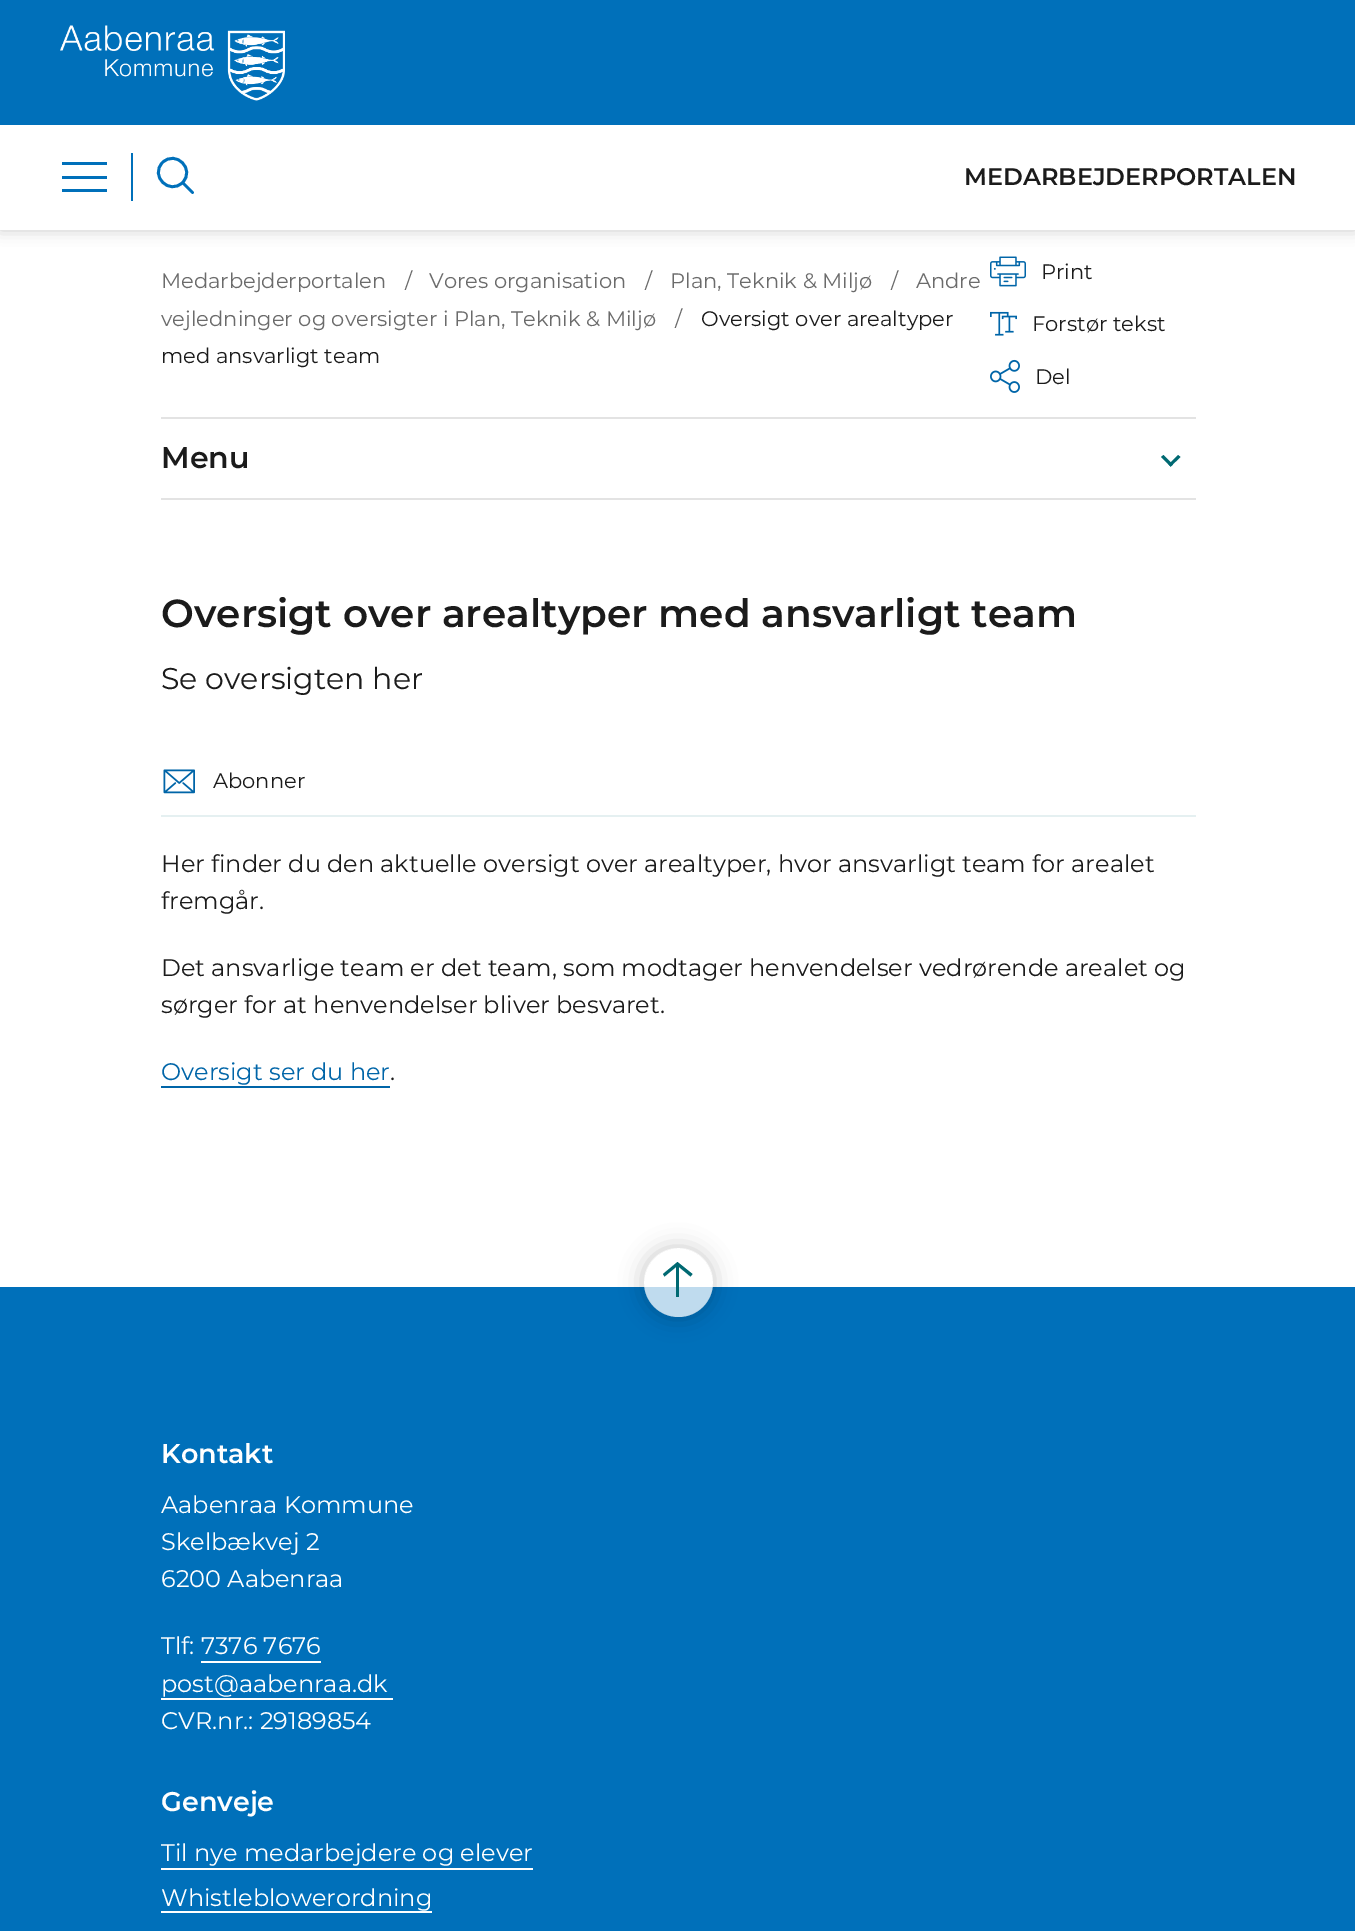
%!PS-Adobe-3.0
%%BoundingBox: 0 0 1355 1931
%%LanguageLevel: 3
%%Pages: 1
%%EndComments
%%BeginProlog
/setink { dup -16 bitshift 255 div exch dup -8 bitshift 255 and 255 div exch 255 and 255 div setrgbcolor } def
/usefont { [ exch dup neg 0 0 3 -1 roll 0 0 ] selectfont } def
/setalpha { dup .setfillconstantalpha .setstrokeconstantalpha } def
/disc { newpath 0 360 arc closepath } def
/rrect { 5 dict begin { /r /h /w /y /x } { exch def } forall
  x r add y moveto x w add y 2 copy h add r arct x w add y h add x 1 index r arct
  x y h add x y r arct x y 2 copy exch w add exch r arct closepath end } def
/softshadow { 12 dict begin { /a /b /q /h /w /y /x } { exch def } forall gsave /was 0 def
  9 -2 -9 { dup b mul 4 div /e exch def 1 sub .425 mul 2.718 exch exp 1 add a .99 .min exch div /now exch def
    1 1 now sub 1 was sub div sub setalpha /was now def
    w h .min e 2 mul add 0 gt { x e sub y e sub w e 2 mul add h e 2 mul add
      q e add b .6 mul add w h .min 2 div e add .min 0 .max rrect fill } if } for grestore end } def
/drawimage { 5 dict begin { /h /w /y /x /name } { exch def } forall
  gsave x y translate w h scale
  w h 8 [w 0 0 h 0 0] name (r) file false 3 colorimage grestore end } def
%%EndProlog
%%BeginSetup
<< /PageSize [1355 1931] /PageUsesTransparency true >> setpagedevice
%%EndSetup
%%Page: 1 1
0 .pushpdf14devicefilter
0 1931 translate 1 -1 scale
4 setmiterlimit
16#FFFFFF setink
0 0 1355 1931 rectfill
16#000000 setink
0 125 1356 105 0 7.5 0.2 softshadow
16#0070BA setink
0 0 1355 125 rectfill
(img1.raw) 60 25 225 76 drawimage
[
    [0 125 1355 105 16#FFFFFF]
    [62 162 45 3 16#0070BA]
    [62 176 45 3 16#0070BA]
    [62 189 45 3 16#0070BA]
    [131 153 2 48 16#0070BA]
] { aload pop setink rectfill } forall
2.8 setlinewidth
1 setlinecap
1 setlinejoin
192.5 192.5 moveto 182.5 182.5 lineto 182.5 182.5 moveto 195.5 169.5 176 149.5 162.5 162.5 curveto 149.5 176 169.5 195.5 182.5 182.5 curveto closepath stroke
/Montserrat-SemiBold 24 usefont
16#1B1B1B setink
964 185 moveto (MEDARBEJDERPORTALEN) show
/Montserrat-Regular 21 usefont
16#6B6B6B setink
[
    [(Medarbejderportalen) 161 288]
    [(/) 405 288]
    [(Vores organisation) 429 288]
    [(/) 645 288]
    [(Plan, Teknik & Miljø) 670 288]
    [(/) 891 288]
    [(Andre) 916 288]
    [(vejledninger og oversigter i Plan, Teknik & Miljø) 161 326]
    [(/) 675 326]
] { aload pop moveto show } forall
16#1B1B1B setink
701 326 moveto (Oversigt over arealtyper) show
161 363 moveto (med ansvarligt team) show
(img2.raw) 990 256 36 31 drawimage
1041 279 moveto (Print) show
(img3.raw) 990 311 27 25 drawimage
1032 331 moveto (Forstør tekst) show
(img4.raw) 990 359 30 34 drawimage
1035 384 moveto (Del) show
16#E3E3E3 setink
161 498 1035 2 rectfill
161 417 1035 2 rectfill
/Montserrat-SemiBold 30 usefont
16#1B1B1B setink
161 468 moveto (Menu) show
16#006972 setink
1180.5 457 moveto 1170.5 466.5 lineto 1168.5 464.5 lineto 1178 455 lineto closepath fill
1173 464.5 moveto 1170.5 466.5 lineto 1161 457 lineto 1163.5 455 lineto closepath fill
/Montserrat-SemiBold 39 usefont
16#1B1B1B setink
161 627 moveto (Oversigt over arealtyper med ansvarligt team) show
/Montserrat-Regular 30 usefont
161 689 moveto (Se oversigten her) show
16#E5F0F1 setink
161 815 1035 2 rectfill
(img5.raw) 163 769 32 25 drawimage
/Montserrat-Regular 21 usefont
16#1B1B1B setink
213 788 moveto (Abonner) show
/Montserrat-Regular 24 usefont
[
    [(Her finder du den aktuelle oversigt over arealtyper, hvor ansvarligt team for arealet) 161 872]
    [(fremgår.) 161 909]
    [(Det ansvarlige team er det team, som modtager henvendelser vedrørende arealet og) 161 976]
    [(sørger for at henvendelser bliver besvaret.) 161 1013]
] { aload pop moveto show } forall
16#0065A8 setink
161 1080 moveto (Oversigt ser du her) show
161 1086 229 2 rectfill
16#1B1B1B setink
390 1080 moveto (.) show
16#0070BA setink
0 1287 1355 644 rectfill
gsave
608 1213 moveto 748 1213 lineto 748 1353 lineto 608 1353 lineto closepath 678.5 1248 moveto 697.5 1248 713 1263.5 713 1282.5 curveto 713 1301.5 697.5 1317 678.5 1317 curveto 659.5 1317 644 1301.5 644 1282.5 curveto 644 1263.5 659.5 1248 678.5 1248 curveto closepath eoclip newpath
16#000000 setink
642 1247 72 72 36 11 0.2 softshadow
grestore
0.75 setalpha
16#FFFFFF setink
678.5 1282.5 34.5 disc fill
1 setalpha
16#006972 setink
663 1274 moveto 664.5 1276.5 lineto 676 1267 lineto 676 1297 lineto 679 1297 lineto 679 1267 lineto 690.5 1276.5 lineto 692.5 1274 lineto 677.5 1262 lineto closepath fill
/Montserrat-SemiBold 27 usefont
16#FFFFFF setink
161 1463 moveto (Kontakt) show
/Montserrat-Regular 24 usefont
[
    [(Aabenraa Kommune) 161 1513]
    [(Skelbækvej 2) 161 1550]
    [(6200 Aabenraa) 161 1587]
    [(Tlf: 7376 7676) 161 1654]
] { aload pop moveto show } forall
201 1661 120 2 rectfill
161 1692 moveto (post@aabenraa.dk) show
161 1698 232 2 rectfill
161 1729 moveto (CVR.nr.: 29189854) show
/Montserrat-SemiBold 27 usefont
161 1811 moveto (Genveje) show
/Montserrat-Regular 24 usefont
161 1861 moveto (Til nye medarbejdere og elever) show
161 1868 372 2 rectfill
161 1906 moveto (Whistleblowerordning) show
161 1911 271 2 rectfill
.poppdf14devicefilter showpage
%%EOF
